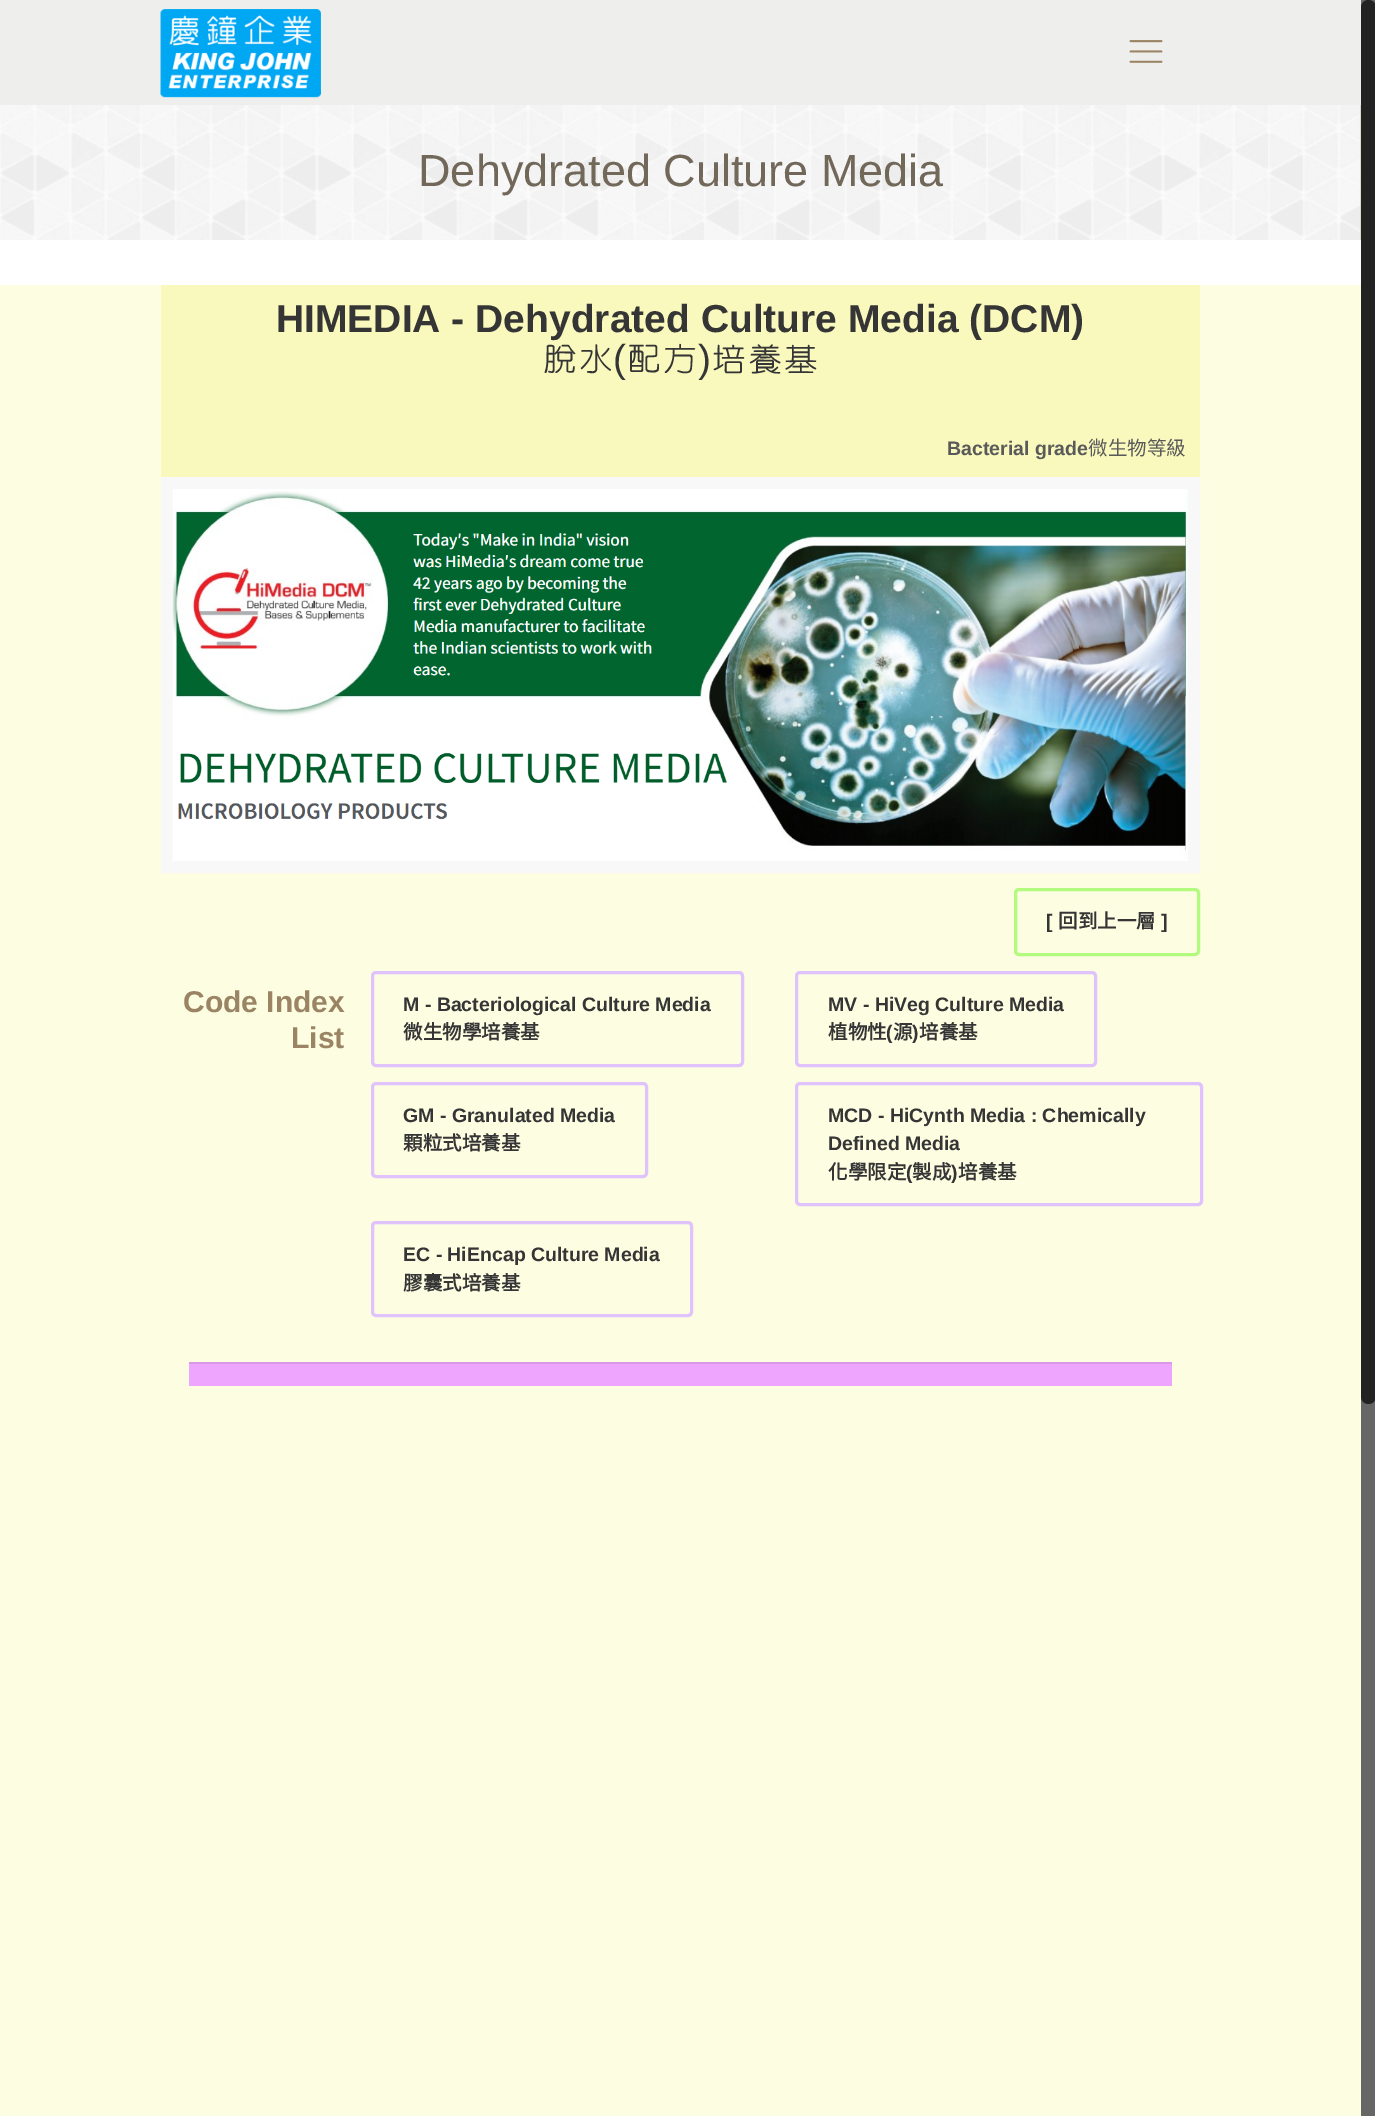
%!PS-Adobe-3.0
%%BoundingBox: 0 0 1375 2116
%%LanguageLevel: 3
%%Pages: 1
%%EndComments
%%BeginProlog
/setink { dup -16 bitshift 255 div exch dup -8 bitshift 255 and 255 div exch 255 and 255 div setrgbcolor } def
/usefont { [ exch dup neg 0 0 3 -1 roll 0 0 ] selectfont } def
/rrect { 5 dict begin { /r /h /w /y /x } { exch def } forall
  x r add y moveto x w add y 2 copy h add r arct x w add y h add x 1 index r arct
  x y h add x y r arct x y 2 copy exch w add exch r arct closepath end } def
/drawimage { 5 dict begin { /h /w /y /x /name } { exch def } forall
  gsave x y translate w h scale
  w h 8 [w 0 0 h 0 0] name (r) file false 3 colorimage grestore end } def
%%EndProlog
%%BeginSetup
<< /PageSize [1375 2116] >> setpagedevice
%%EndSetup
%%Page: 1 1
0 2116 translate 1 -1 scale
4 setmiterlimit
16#FFFFFF setink
0 0 1375 2116 rectfill
16#EEEEED setink
0 0 1361 105 rectfill
(img1.raw) 160 9 161 89 drawimage
(img2.raw) 1129 40 34 23 drawimage
16#C8BEAF setink
1360 105 1 135 rectfill
(img3.raw) 0 105 1361 135 drawimage
/LiberationSans-Regular 45 usefont
16#72685A setink
418 186 moveto (Dehydrated Culture Media) show
16#FDFDE2 setink
0 285 1361 1831 rectfill
16#F9F9BD setink
161 285 1039 192 rectfill
/LiberationSans-Bold 39 usefont
16#353535 setink
276 332 moveto (HIMEDIA - Dehydrated Culture Media \(DCM\)) show
/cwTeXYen-Medium 39 usefont
542 372 moveto (脫水) show
/LiberationSans-Regular 39 usefont
613 372 moveto (\() show
/cwTeXYen-Medium 39 usefont
626 372 moveto (配方) show
/LiberationSans-Regular 39 usefont
698 372 moveto (\)) show
/cwTeXYen-Medium 39 usefont
711 372 moveto (培養基) show
/LiberationSans-Bold 19.5 usefont
16#5A5A5A setink
947 455 moveto (Bacterial grade) show
/NotoSansCJKTC-Regular 19.5 usefont
1088 455 moveto (微生物等級) show
16#F8F8F8 setink
12 setlinewidth
167 483 1027 384 rectstroke
(img4.raw) 172 489 1016 372 drawimage
16#B2FB7E setink
3 setlinewidth
1015.5 889.5 183 65 3.5 rrect stroke
/LiberationSans-Bold 19.5 usefont
16#353535 setink
1046 928 moveto ([) show
/NotoSansCJKTC-Bold 19.5 usefont
1058 928 moveto (回到上一層) show
/LiberationSans-Bold 19.5 usefont
1161 928 moveto (]) show
/LiberationSans-Bold 30 usefont
16#9A8464 setink
183 1012 moveto (Code Index) show
291 1048 moveto (List) show
16#E0C3FD setink
372.5 972.5 370 93 3.5 rrect stroke
/LiberationSans-Bold 19.5 usefont
16#353535 setink
403 1011 moveto (M - Bacteriological Culture Media) show
/NotoSansCJKTC-Bold 19.5 usefont
403 1039 moveto (微生物學培養基) show
16#E0C3FD setink
796.5 972.5 299 93 3.5 rrect stroke
/LiberationSans-Bold 19.5 usefont
16#353535 setink
828 1011 moveto (MV - HiVeg Culture Media) show
/NotoSansCJKTC-Bold 19.5 usefont
828 1039 moveto (植物性) show
/LiberationSans-Bold 19.5 usefont
886 1039 moveto (\() show
/NotoSansCJKTC-Bold 19.5 usefont
893 1039 moveto (源) show
/LiberationSans-Bold 19.5 usefont
912 1039 moveto (\)) show
/NotoSansCJKTC-Bold 19.5 usefont
919 1039 moveto (培養基) show
16#E0C3FD setink
372.5 1083.5 274 93 3.5 rrect stroke
/LiberationSans-Bold 19.5 usefont
16#353535 setink
403 1122 moveto (GM - Granulated Media) show
/NotoSansCJKTC-Bold 19.5 usefont
403 1150 moveto (顆粒式培養基) show
16#E0C3FD setink
796.5 1083.5 405 121 3.5 rrect stroke
/LiberationSans-Bold 19.5 usefont
16#353535 setink
828 1122 moveto (MCD - HiCynth Media : Chemically) show
828 1150 moveto (Defined Media) show
/NotoSansCJKTC-Bold 19.5 usefont
828 1179 moveto (化學限定) show
/LiberationSans-Bold 19.5 usefont
906 1179 moveto (\() show
/NotoSansCJKTC-Bold 19.5 usefont
912 1179 moveto (製成) show
/LiberationSans-Bold 19.5 usefont
951 1179 moveto (\)) show
/NotoSansCJKTC-Bold 19.5 usefont
958 1179 moveto (培養基) show
16#E0C3FD setink
372.5 1222.5 319 93 3.5 rrect stroke
/LiberationSans-Bold 19.5 usefont
16#353535 setink
403 1261 moveto (EC - HiEncap Culture Media) show
/NotoSansCJKTC-Bold 19.5 usefont
403 1290 moveto (膠囊式培養基) show
[
    [189 1364 983 22 16#EEA5FD]
    [189 1362 983 2 16#DB98E9]
    [1361 0 14 2116 16#666666]
] { aload pop setink rectfill } forall
16#222222 setink
1361 0 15 1404 7.5 rrect fill
showpage
%%EOF
